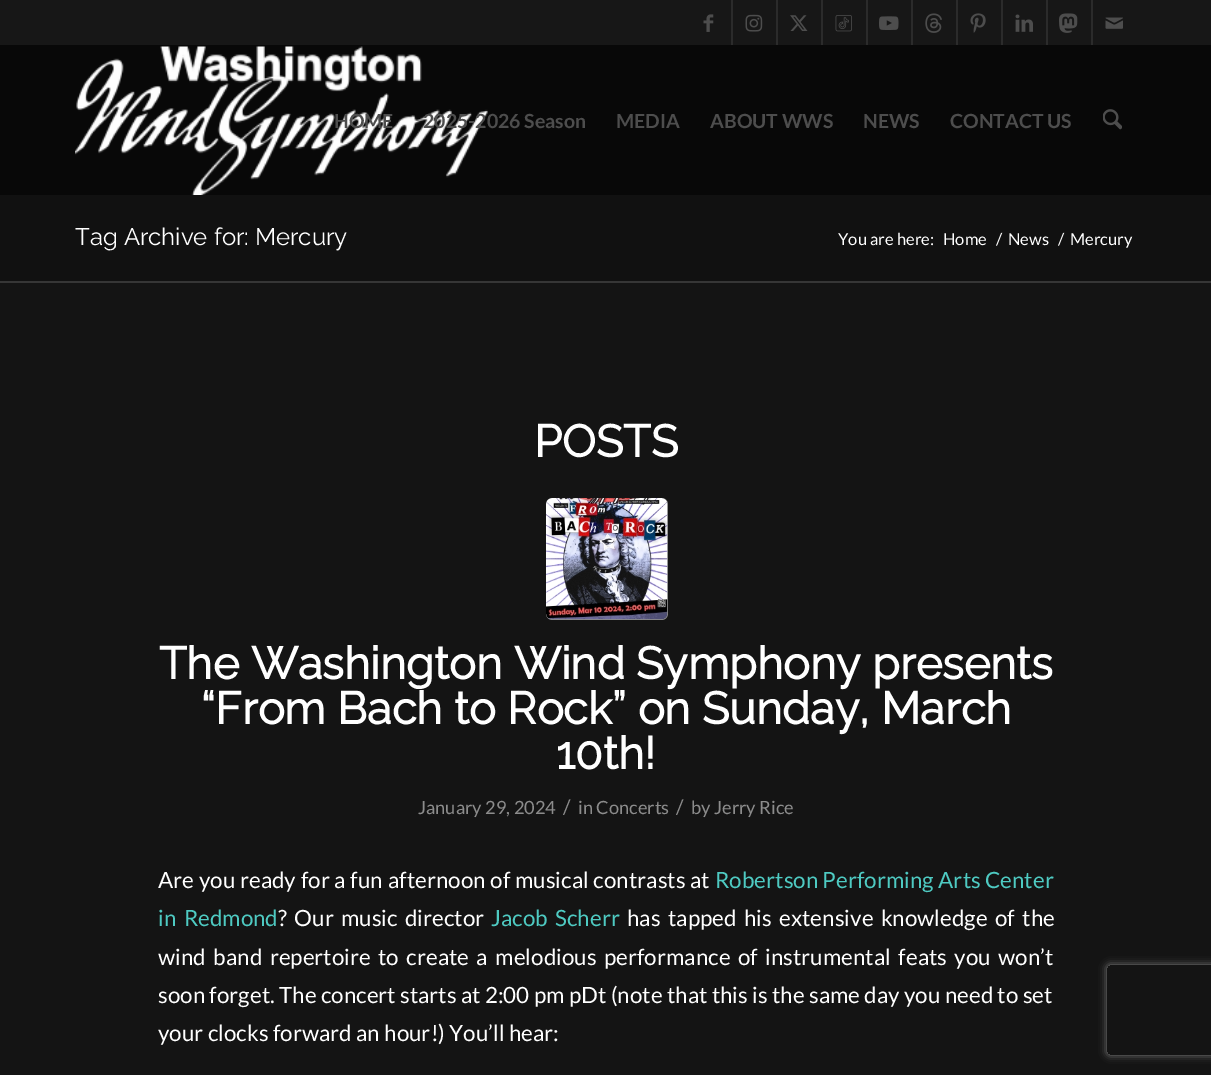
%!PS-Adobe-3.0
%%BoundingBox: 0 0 1211 1075
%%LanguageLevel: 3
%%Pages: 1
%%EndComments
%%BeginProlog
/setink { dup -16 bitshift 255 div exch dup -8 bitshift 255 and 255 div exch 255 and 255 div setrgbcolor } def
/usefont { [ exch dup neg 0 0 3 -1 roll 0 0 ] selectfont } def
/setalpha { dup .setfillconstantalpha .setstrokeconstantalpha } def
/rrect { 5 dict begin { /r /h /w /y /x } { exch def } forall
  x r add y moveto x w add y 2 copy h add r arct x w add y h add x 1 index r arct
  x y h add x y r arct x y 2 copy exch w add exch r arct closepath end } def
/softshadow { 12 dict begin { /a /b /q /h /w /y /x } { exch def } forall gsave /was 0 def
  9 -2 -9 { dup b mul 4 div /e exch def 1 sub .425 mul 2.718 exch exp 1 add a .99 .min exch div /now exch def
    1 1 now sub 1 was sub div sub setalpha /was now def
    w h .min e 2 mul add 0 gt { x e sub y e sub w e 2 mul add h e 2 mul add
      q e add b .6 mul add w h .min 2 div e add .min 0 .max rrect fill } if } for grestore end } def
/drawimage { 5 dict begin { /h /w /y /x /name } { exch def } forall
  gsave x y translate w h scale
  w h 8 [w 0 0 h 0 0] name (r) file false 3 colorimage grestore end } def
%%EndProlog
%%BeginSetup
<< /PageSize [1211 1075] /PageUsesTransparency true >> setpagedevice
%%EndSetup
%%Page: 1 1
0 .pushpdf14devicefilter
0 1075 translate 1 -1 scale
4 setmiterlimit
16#080808 setink
0 0 1211 1075 rectfill
16#171717 setink
0 0 1211 45 rectfill
16#2B2B2B setink
731 0 2 45 rectfill
(img1.raw) 703 14 11 18 drawimage
776 0 2 45 rectfill
(img2.raw) 745 14 18 18 drawimage
821 0 2 45 rectfill
(img3.raw) 790 15 18 16 drawimage
866 0 2 45 rectfill
(img4.raw) 835 15 17 17 drawimage
911 0 2 45 rectfill
(img5.raw) 879 16 20 14 drawimage
956 0 2 45 rectfill
(img6.raw) 925 13 17 20 drawimage
1001 0 2 45 rectfill
(img7.raw) 970 13 16 20 drawimage
1046 0 2 45 rectfill
(img8.raw) 1015 14 18 18 drawimage
1091 0 2 45 rectfill
(img9.raw) 1059 13 19 20 drawimage
(img10.raw) 1105 17 18 12 drawimage
(img11.raw) 75 46 413 149 drawimage
/Lato-Bold 19.5 usefont
16#4D4D4D setink
[
    [(HOME) 334 128]
    [(2025-2026 Season) 423 128]
    [(MEDIA) 616 128]
    [(ABOUT WWS) 710 128]
    [(NEWS) 863 128]
    [(CONTACT US) 950 128]
] { aload pop moveto show } forall
(img12.raw) 1103 109 19 21 drawimage
16#111111 setink
0 195 1211 86 rectfill
/Raleway-Thin 24 usefont
16#FFFFFF setink
75 245 moveto (Tag Archive for: Mercury) show
/Lato-Regular 16.5 usefont
[
    [(You are here:) 838 245]
    [(Home) 943 245]
    [(/) 996 245]
    [(News) 1008 245]
    [(/) 1058 245]
    [(Mercury) 1070 245]
] { aload pop moveto show } forall
16#141414 setink
0 283 1211 792 rectfill
16#363636 setink
0 281 1211 2 rectfill
/Raleway-Bold 45 usefont
16#FFFFFF setink
534 457 moveto (POSTS) show
16#8C8C8C setink
546 498 122 122 6 rrect fill
(img13.raw) 546 498 122 122 drawimage
16#FFFFFF setink
[
    [(The Washington Wind Symphony presents) 159 679]
    [(“From Bach to Rock” on Sunday, March) 201 724]
    [(10th!) 556 769]
] { aload pop moveto show } forall
/Lato-Regular 18.25 usefont
16#8C8C8C setink
418 814 moveto (January 29, 2024) show
/Lato-Regular 20 usefont
563 814 moveto (/) show
/Lato-Regular 18.25 usefont
578 814 moveto (in Concerts) show
/Lato-Regular 20 usefont
676 814 moveto (/) show
/Lato-Regular 18.25 usefont
691 814 moveto (by Jerry Rice) show
/Lato-Regular 22.4 usefont
16#FFFFFF setink
158 888 moveto 0.4 0 32 (Are you ready for a fun afternoon of musical contrasts at) widthshow
16#4ECAC2 setink
715 888 moveto (Robertson Performing Arts Center) show
158 926 moveto 3 0 32 (in Redmond) widthshow
16#FFFFFF setink
278 926 moveto 3 0 32 (? Our music director) widthshow
16#4ECAC2 setink
491 926 moveto 3 0 32 (Jacob Scherr) widthshow
16#FFFFFF setink
627 926 moveto 3 0 32 (has tapped his extensive knowledge of the) widthshow
158 965 moveto 3.1 0 32 (wind band repertoire to create a melodious performance of instrumental feats you won’t) widthshow
158 1003 moveto (soon forget. The concert starts at 2:00 pm pDt \(note that this is the same day you need to set) show
158 1041 moveto (your clocks forward an hour!\) You’ll hear:) show
gsave
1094 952 moveto 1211 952 lineto 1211 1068 lineto 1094 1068 lineto closepath 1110 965 moveto 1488 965 lineto 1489.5 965 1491 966.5 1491 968 curveto 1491 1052 lineto 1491 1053.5 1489.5 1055 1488 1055 curveto 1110 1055 lineto 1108.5 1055 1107 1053.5 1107 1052 curveto 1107 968 lineto 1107 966.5 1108.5 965 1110 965 curveto closepath eoclip newpath
16#808080 setink
1107 965 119 90 3 4 1 softshadow
grestore
.poppdf14devicefilter showpage
%%EOF
